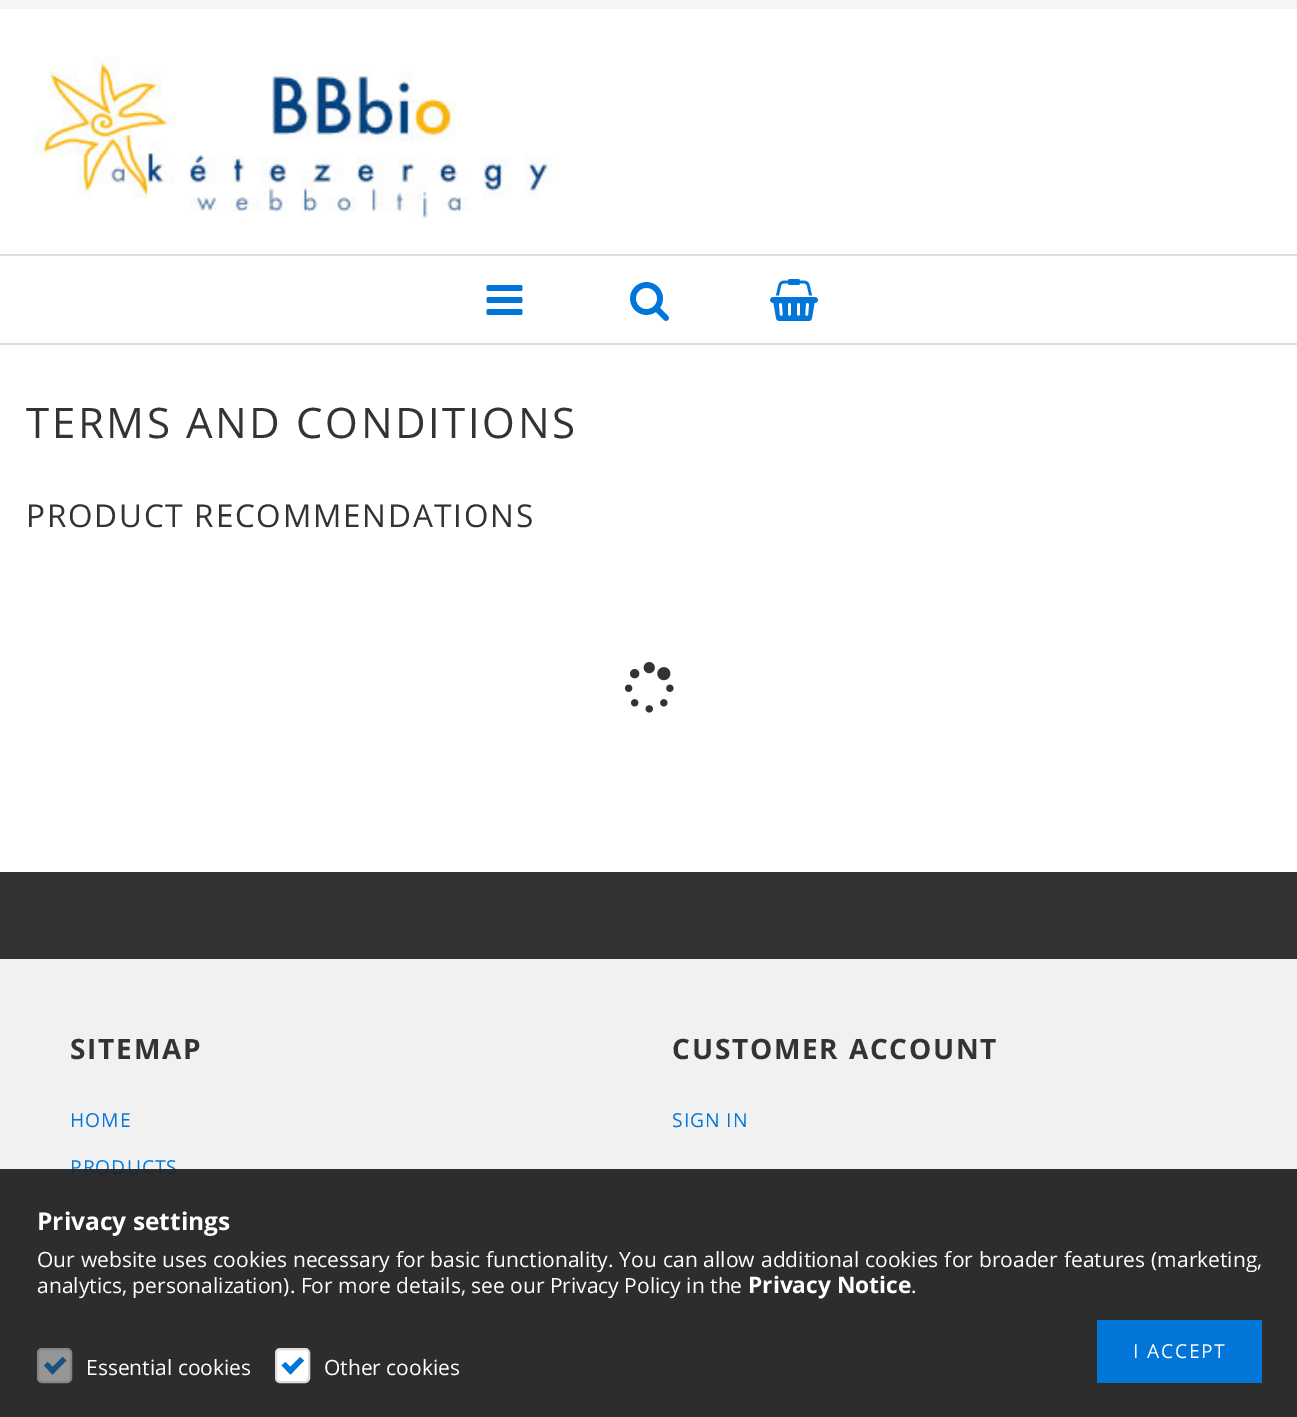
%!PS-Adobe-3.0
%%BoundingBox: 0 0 1297 1417
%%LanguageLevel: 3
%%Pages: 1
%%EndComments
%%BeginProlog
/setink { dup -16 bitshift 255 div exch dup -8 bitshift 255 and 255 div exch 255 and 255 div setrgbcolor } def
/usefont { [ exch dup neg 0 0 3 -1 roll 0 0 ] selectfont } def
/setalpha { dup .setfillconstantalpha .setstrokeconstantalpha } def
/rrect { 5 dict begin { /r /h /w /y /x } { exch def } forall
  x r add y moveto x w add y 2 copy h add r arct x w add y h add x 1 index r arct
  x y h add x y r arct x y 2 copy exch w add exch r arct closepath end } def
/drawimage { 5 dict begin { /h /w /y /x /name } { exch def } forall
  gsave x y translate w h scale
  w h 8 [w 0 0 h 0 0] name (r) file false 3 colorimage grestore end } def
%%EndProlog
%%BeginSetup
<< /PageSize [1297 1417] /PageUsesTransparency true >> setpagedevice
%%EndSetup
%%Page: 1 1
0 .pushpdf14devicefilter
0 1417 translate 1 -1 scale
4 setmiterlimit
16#FFFFFF setink
0 0 1297 1417 rectfill
16#F5F5F5 setink
0 0 1297 9 rectfill
(img1.raw) 35 57 518 162 drawimage
16#DDDDDD setink
0 254 1297 2 rectfill
0 343 1297 2 rectfill
(img2.raw) 486 285 37 30 drawimage
(img3.raw) 630 282 39 39 drawimage
(img4.raw) 770 279 48 42 drawimage
/OpenSans-Regular 42 usefont
16#333333 setink
26 438 moveto 2.6 0 (TERMS AND CONDITIONS) ashow
/OpenSans-Regular 31.5 usefont
26 527 moveto 1.75 0 (PRODUCT RECOMMENDATIONS) ashow
(img5.raw) 624 662 50 51 drawimage
0 872 1297 87 rectfill
16#F1F1F1 setink
0 959 1297 458 rectfill
/OpenSans-Bold 28 usefont
16#333333 setink
70 1059 moveto 1.75 0 (SITEMAP) ashow
/OpenSans-Regular 19.25 usefont
16#0275D8 setink
70 1127 moveto 1 0 (HOME) ashow
70 1174 moveto 1 0 (PRODUCTS) ashow
/OpenSans-Bold 28 usefont
16#333333 setink
672 1059 moveto 1.75 0 (CUSTOMER ACCOUNT) ashow
/OpenSans-Regular 19.25 usefont
16#0275D8 setink
672 1127 moveto 1 0 (SIGN IN) ashow
0.95 setalpha
16#222222 setink
0 1169 1297 248 rectfill
/OpenSans-Bold 24.5 usefont
1 setalpha
16#FFFFFF setink
37 1230 moveto (Privacy settings) show
/OpenSans-Regular 21 usefont
37 1267 moveto 0.6 0 32 (Our website uses cookies necessary for basic functionality. You can allow additional cookies for broader features \(marketing,) widthshow
37 1293 moveto (analytics, personalization\). For more details, see our Privacy Policy in the) show
/OpenSans-Bold 22.75 usefont
748 1293 moveto (Privacy Notice) show
/OpenSans-Regular 21 usefont
911 1293 moveto (.) show
16#0275D8 setink
1097 1320 165 63 rectfill
/OpenSans-Regular 19.25 usefont
16#FFFFFF setink
1133 1358 moveto 1.75 0 (I ACCEPT) ashow
16#969696 setink
38 1349 33 33 4 rrect gsave fill grestore
16#858585 setink
2 setlinewidth
stroke
16#175182 setink
49 1370.5 moveto 62.5 1357 lineto 66.5 1360.5 lineto 52.5 1374.5 lineto closepath fill
44 1365.5 moveto 47.5 1362 lineto 56.5 1370.5 lineto 52.5 1374.5 lineto closepath fill
/OpenSans-Regular 21 usefont
16#FFFFFF setink
86 1375 moveto (Essential cookies) show
276 1349 33 33 4 rrect gsave fill grestore
16#DDDDDD setink
stroke
16#0275D8 setink
286.5 1370.5 moveto 300 1357 lineto 304 1360.5 lineto 290.5 1374.5 lineto closepath fill
281.5 1365.5 moveto 285.5 1362 lineto 294 1370.5 lineto 290.5 1374.5 lineto closepath fill
16#FFFFFF setink
324 1375 moveto (Other cookies) show
.poppdf14devicefilter showpage
%%EOF
